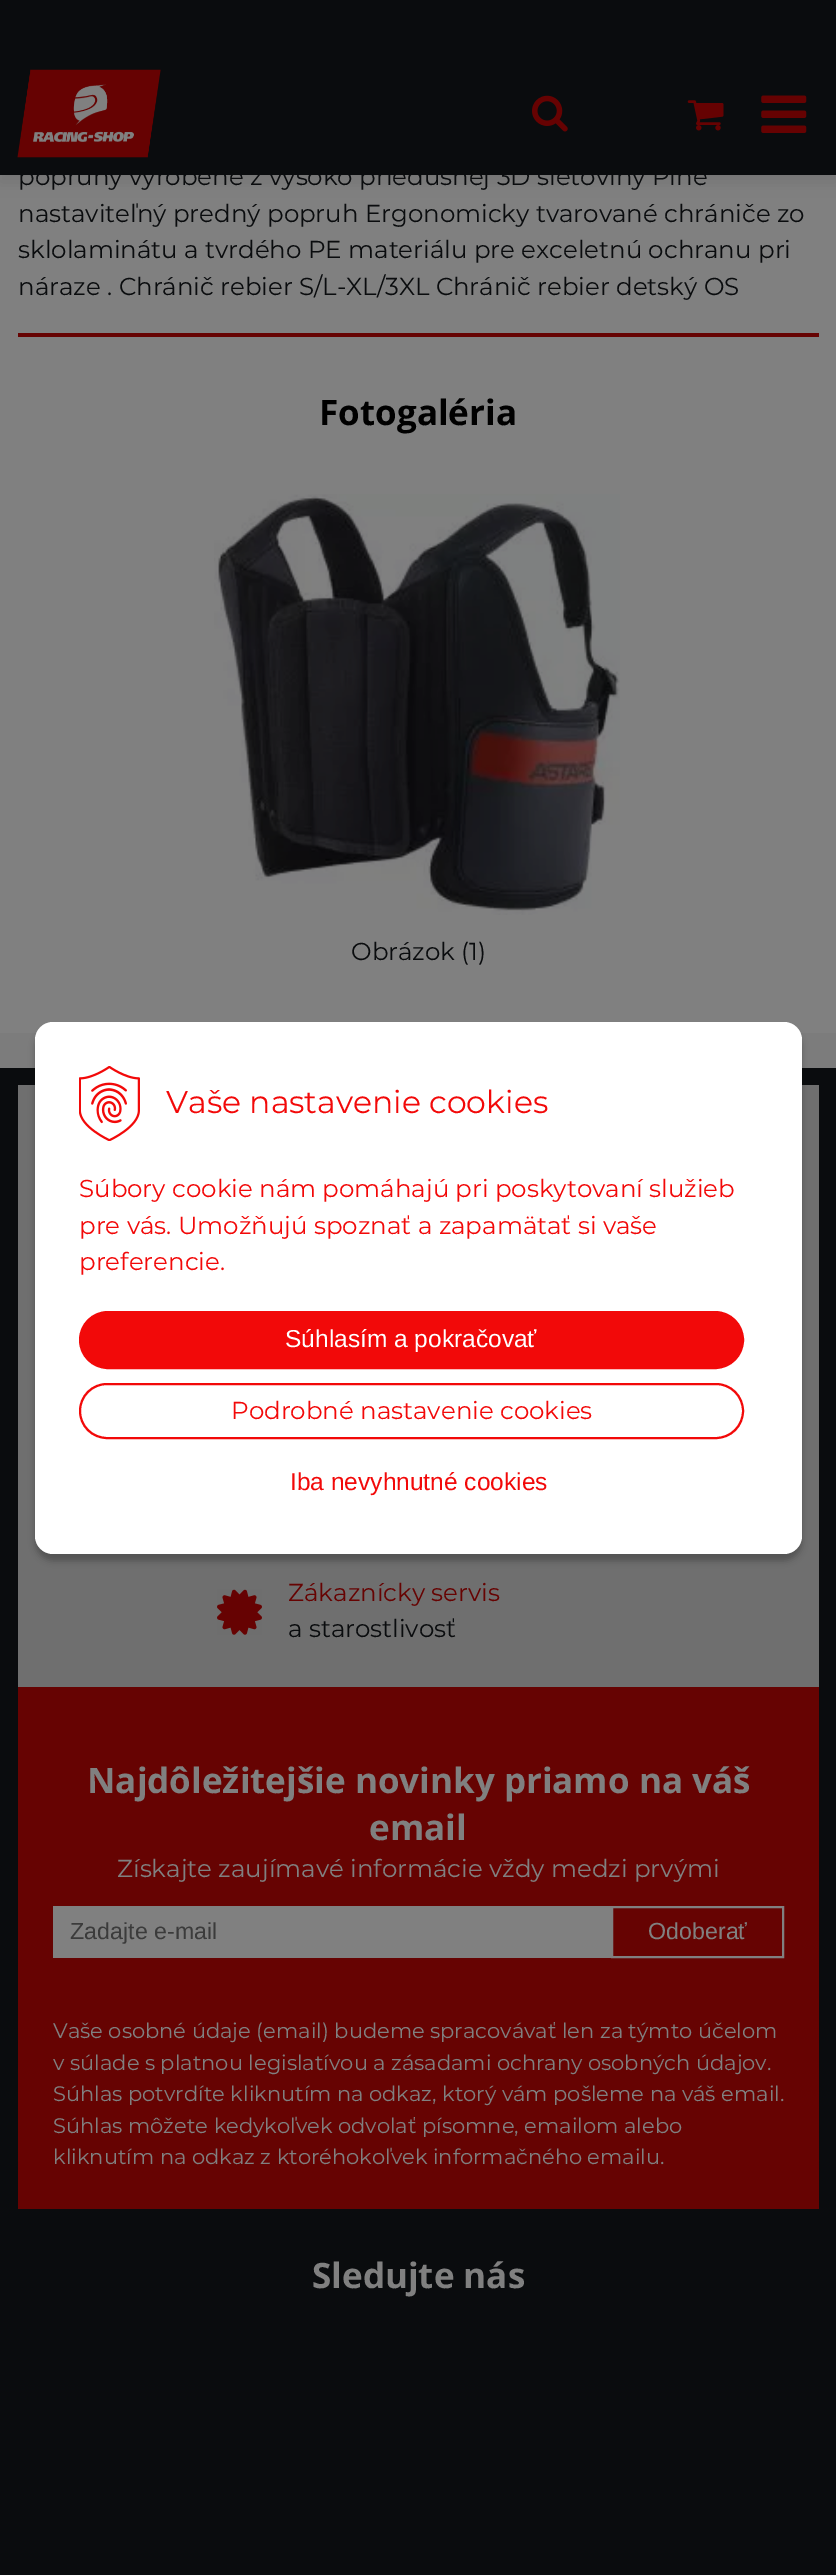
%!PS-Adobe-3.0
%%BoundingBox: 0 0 836 2575
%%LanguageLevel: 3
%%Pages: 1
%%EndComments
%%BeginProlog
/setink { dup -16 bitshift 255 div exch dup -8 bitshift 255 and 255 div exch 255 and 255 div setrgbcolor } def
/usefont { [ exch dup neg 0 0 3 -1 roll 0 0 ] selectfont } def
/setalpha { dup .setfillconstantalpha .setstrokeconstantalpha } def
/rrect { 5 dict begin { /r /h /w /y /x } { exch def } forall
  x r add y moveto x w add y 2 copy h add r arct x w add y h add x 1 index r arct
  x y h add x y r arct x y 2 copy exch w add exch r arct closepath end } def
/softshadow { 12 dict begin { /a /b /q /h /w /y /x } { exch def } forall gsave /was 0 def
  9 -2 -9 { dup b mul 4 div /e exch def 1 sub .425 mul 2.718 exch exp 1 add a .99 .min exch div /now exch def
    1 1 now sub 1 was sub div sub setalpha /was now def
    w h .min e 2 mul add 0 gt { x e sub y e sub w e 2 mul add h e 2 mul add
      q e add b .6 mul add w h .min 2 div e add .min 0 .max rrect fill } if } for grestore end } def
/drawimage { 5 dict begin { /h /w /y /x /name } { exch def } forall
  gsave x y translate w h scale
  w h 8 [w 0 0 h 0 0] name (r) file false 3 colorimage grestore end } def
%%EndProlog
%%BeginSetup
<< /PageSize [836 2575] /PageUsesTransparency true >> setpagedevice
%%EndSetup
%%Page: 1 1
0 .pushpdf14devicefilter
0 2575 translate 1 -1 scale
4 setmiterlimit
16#7C7C7C setink
0 0 836 2575 rectfill
16#808080 setink
0 175 836 858 rectfill
16#000000 setink
0 7 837 175 0 7 0.1 softshadow
16#0A0C0E setink
0 0 836 175 rectfill
(img1.raw) 17 69 144 89 drawimage
(img2.raw) 532 95 36 37 drawimage
(img3.raw) 687 100 37 31 drawimage
(img4.raw) 761 95 46 38 drawimage
/Montserrat-Regular 24.5 usefont
[
    [(popruhy vyrobené z vysoko priedušnej 3D sieťoviny Plne) 18 185]
    [(nastaviteľný predný popruh Ergonomicky tvarované chrániče zo) 18 222]
    [(sklolaminátu a tvrdého PE materiálu pre exceletnú ochranu pri) 18 258]
    [(náraze . Chránič rebier S/L-XL/3XL Chránič rebier detský OS) 18 295]
] { aload pop moveto show } forall
16#660302 setink
18 333 801 4 rectfill
/OpenSans-Bold 35 usefont
16#000000 setink
319 425 moveto (Fotogaléria) show
(img5.raw) 214 494 406 421 drawimage
/Montserrat-Regular 24.5 usefont
16#0A0C0E setink
351 960 moveto (Obrázok \(1\)) show
0 1068 836 1507 rectfill
16#6F6F6F setink
18 1085 801 602 rectfill
(img6.raw) 217 1589 45 46 drawimage
16#660302 setink
288 1601 moveto (Zákaznícky servis) show
16#0A0C0E setink
288 1637 moveto (a starostlivosť) show
16#660302 setink
18 1687 801 522 rectfill
/OpenSans-Bold 35 usefont
16#808080 setink
87 1793 moveto (Najdôležitejšie novinky priamo na váš) show
369 1840 moveto (email) show
/Montserrat-Regular 24.5 usefont
117 1877 moveto (Získajte zaujímavé informácie vždy medzi prvými) show
53 1906 558 52 rectfill
/LiberationSans-Regular 23.25 usefont
16#3B3B3B setink
70 1939 moveto (Zadajte e-mail) show
16#808080 setink
2 setlinewidth
612 1907 171 50 rectstroke
648 1939 moveto (Odoberať) show
/Montserrat-Regular 21 usefont
[
    [(Vaše osobné údaje \(email\) budeme spracovávať len za týmto účelom) 53 2038]
    [(v súlade s platnou legislatívou a zásadami ochrany osobných údajov.) 53 2070]
    [(Súhlas potvrdíte kliknutím na odkaz, ktorý vám pošleme na váš email.) 53 2101]
    [(Súhlas môžete kedykoľvek odvolať písomne, emailom alebo) 53 2133]
    [(kliknutím na odkaz z ktoréhokoľvek informačného emailu.) 53 2164]
] { aload pop moveto show } forall
/OpenSans-Bold 35 usefont
312 2288 moveto (Sledujte nás) show
16#000000 setink
35 1029 767 532 18 3.5 0.25 softshadow
16#FFFFFF setink
35 1022 767 532 18 rrect fill
(img7.raw) 79 1066 61 75 drawimage
/Montserrat-Regular 31.5 usefont
16#F20909 setink
166 1113 moveto (Vaše nastavenie cookies) show
/Montserrat-Regular 24.5 usefont
[
    [(Súbory cookie nám pomáhajú pri poskytovaní služieb) 79 1197]
    [(pre vás. Umožňujú spoznať a zapamätať si vaše) 79 1234]
    [(preferencie.) 79 1270]
] { aload pop moveto show } forall
80 1312 663 56 28 rrect gsave fill grestore
stroke
/LiberationSans-Regular 24.5 usefont
16#FFFFFF setink
285 1347 moveto (Súhlasím a pokračovať) show
16#F20909 setink
80 1384 663 54 27 rrect stroke
/Montserrat-Regular 24.5 usefont
231 1419 moveto (Podrobné nastavenie cookies) show
/LiberationSans-Regular 24.5 usefont
290 1490 moveto (Iba nevyhnutné cookies) show
.poppdf14devicefilter showpage
%%EOF
